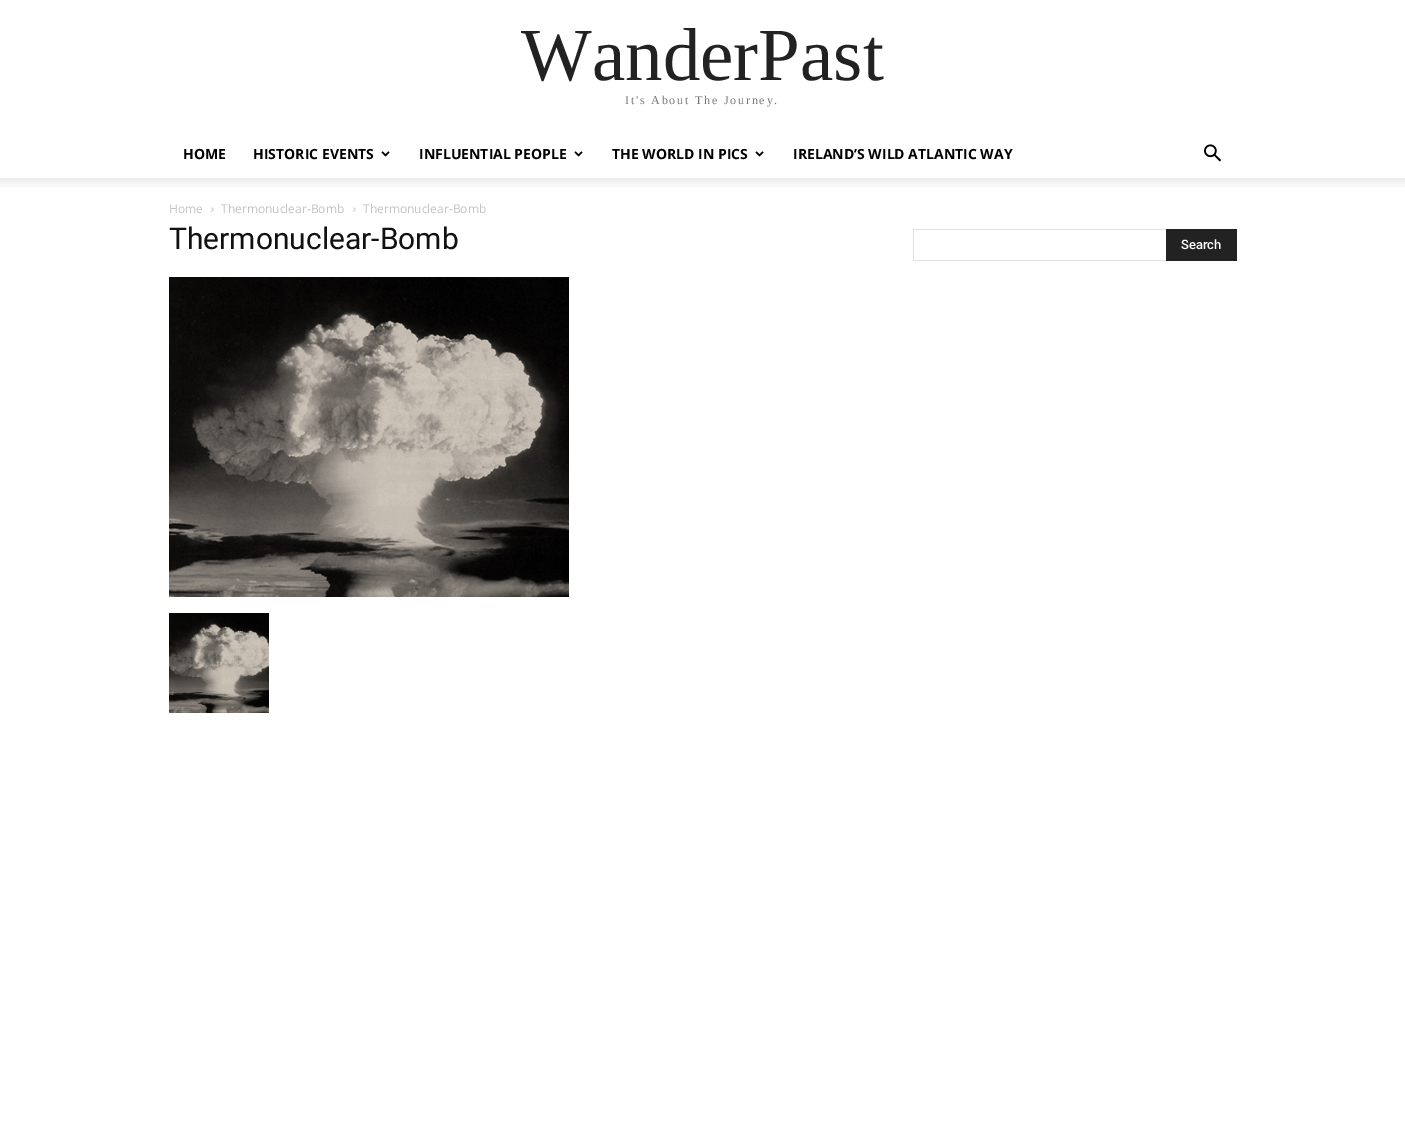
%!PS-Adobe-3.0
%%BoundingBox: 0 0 1405 1121
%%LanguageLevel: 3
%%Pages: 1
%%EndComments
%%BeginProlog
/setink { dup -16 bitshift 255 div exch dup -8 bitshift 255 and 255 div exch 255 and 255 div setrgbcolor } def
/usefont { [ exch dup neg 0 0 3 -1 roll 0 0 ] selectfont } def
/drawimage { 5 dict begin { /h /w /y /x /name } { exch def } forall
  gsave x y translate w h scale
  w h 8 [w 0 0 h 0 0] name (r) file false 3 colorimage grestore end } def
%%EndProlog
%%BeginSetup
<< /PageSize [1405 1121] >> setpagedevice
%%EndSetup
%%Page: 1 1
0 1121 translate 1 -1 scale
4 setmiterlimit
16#FFFFFF setink
0 0 1405 1121 rectfill
/LiberationSerif-Regular 75 usefont
16#222222 setink
521 80 moveto (WanderPast) show
/LiberationSerif-Regular 12 usefont
16#777777 setink
625 104 moveto 1.8 0 (It's About The Journey.) ashow
/OpenSans-Bold 14 usefont
16#000000 setink
183 159 moveto (HOME) show
253 159 moveto (HISTORIC EVENTS) show
(img1.raw) 381 151 9 6 drawimage
419 159 moveto (INFLUENTIAL PEOPLE) show
(img1.raw) 574 151 9 6 drawimage
612 159 moveto (THE WORLD IN PICS) show
(img1.raw) 755 151 9 6 drawimage
793 159 moveto (IRELAND’S WILD ATLANTIC WAY) show
(img2.raw) 1204 144 17 18 drawimage
(img3.raw) 0 178 1405 9 drawimage
/OpenSans-Regular 12 usefont
16#C3C3C3 setink
169 213 moveto (Home) show
(img4.raw) 211 207 3 5 drawimage
221 213 moveto (Thermonuclear-Bomb) show
(img4.raw) 353 207 3 5 drawimage
363 213 moveto (Thermonuclear-Bomb) show
/Roboto-Regular 30 usefont
16#111111 setink
169 249 moveto (Thermonuclear-Bomb) show
(img5.raw) 169 277 400 320 drawimage
(img6.raw) 169 613 100 100 drawimage
[
    [913 229 253 1 16#E1E1E1]
    [913 260 253 1 16#E1E1E1]
    [913 229 1 32 16#E1E1E1]
    [1166 229 71 32 16#222222]
] { aload pop setink rectfill } forall
/Roboto-Medium 13 usefont
16#FFFFFF setink
1181 249 moveto (Search) show
showpage
%%EOF
